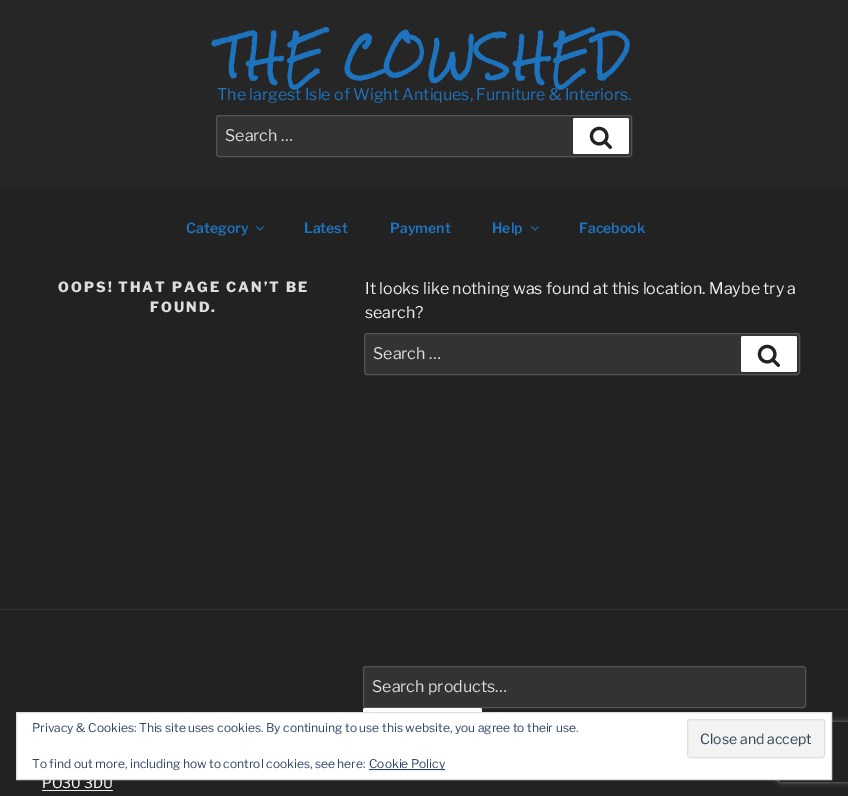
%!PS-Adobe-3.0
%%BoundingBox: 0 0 848 796
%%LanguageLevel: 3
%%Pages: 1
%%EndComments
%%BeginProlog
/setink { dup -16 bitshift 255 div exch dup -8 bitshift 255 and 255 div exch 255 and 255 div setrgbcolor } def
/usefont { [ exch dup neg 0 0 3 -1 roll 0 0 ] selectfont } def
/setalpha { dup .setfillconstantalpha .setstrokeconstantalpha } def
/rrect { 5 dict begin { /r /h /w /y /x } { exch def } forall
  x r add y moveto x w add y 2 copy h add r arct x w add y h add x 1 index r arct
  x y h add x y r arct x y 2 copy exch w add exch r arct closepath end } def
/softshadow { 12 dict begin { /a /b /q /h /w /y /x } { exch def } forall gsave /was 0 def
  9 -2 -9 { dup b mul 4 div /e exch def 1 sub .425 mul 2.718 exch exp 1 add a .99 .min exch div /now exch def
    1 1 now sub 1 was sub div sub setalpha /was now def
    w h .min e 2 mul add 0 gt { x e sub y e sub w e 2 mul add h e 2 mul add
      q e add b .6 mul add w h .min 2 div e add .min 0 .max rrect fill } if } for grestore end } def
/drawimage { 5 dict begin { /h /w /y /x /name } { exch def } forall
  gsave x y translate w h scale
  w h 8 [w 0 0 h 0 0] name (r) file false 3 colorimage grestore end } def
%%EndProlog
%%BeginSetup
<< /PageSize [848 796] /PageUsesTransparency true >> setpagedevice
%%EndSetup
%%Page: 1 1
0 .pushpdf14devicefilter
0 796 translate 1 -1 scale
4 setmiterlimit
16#222222 setink
0 0 848 796 rectfill
16#262626 setink
0 0 848 189 rectfill
/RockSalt-Bold 40 usefont
16#1E73BE setink
218 73 moveto 2.4 0 (THE COWSHED) ashow
/LibreFranklin-Regular 16 usefont
217 100 moveto (The largest Isle of Wight Antiques, Furniture & Interiors.) show
16#333333 setink
216.5 115.5 415 41 2.5 rrect gsave fill grestore
16#555555 setink
stroke
16#DDDDDD setink
225 141 moveto (Search …) show
16#FFFFFF setink
573 118 56 36 2 rrect fill
(img1.raw) 589 126 23 23 drawimage
/LibreFranklin-SemiBold 14 usefont
16#1E73BE setink
186 233 moveto (Category) show
(img2.raw) 256 226 8 5 drawimage
[
    [(Latest) 304 233]
    [(Payment) 390 233]
    [(Help) 492 233]
] { aload pop moveto show } forall
(img2.raw) 531 226 8 5 drawimage
579 233 moveto (Facebook) show
/LibreFranklin-ExtraBold 14 usefont
16#DDDDDD setink
58 292 moveto 2 0 (OOPS! THAT PAGE CAN’T BE) ashow
150 312 moveto 2 0 (FOUND.) ashow
/LibreFranklin-Regular 16 usefont
16#EEEEEE setink
365 294 moveto (It looks like nothing was found at this location. Maybe try a) show
365 318 moveto (search?) show
16#333333 setink
364.5 333.5 435 41 2.5 rrect gsave fill grestore
16#555555 setink
stroke
16#DDDDDD setink
373 359 moveto (Search …) show
16#FFFFFF setink
741 336 56 36 2 rrect fill
(img1.raw) 757 344 23 23 drawimage
16#333333 setink
0 609 848 1 rectfill
363.5 666.5 442 41 2.5 rrect gsave fill grestore
16#555555 setink
stroke
16#DDDDDD setink
372 692 moveto (Search products…) show
16#FFFFFF setink
363 708 119 48 2 rrect fill
/LibreFranklin-Regular 14 usefont
42 788 moveto (PO30 3DU) show
16#F0F0F0 setink
42 790 71 1 rectfill
gsave
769 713 moveto 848 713 lineto 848 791 lineto 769 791 lineto closepath 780 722 moveto 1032 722 lineto 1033 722 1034 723 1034 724 curveto 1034 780 lineto 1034 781 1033 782 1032 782 curveto 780 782 lineto 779 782 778 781 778 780 curveto 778 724 lineto 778 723 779 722 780 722 curveto closepath eoclip newpath
16#808080 setink
778 722 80 60 2 2.5 1 softshadow
grestore
16#FFFFFF setink
16.5 712.5 moveto 831.5 712.5 lineto 831.5 779.5 lineto 16.5 779.5 lineto closepath gsave fill grestore
16#DEDEDE setink
stroke
/LibreFranklin-Regular 12 usefont
16#2E4467 setink
32 732 moveto (Privacy & Cookies: This site uses cookies. By continuing to use this website, you agree to their use.) show
16#F3F3F3 setink
687.5 719.5 137 38 2.5 rrect gsave fill grestore
16#DEDEDE setink
stroke
/LibreFranklin-Regular 14 usefont
16#2E4453 setink
700 744 moveto (Close and accept) show
/LibreFranklin-Regular 12 usefont
16#2E4467 setink
32 768 moveto (To find out more, including how to control cookies, see here:) show
369 769 76 1 rectfill
369 768 moveto (Cookie Policy) show
16#F0F0F0 setink
369 770 76 1 rectfill
.poppdf14devicefilter showpage
%%EOF
